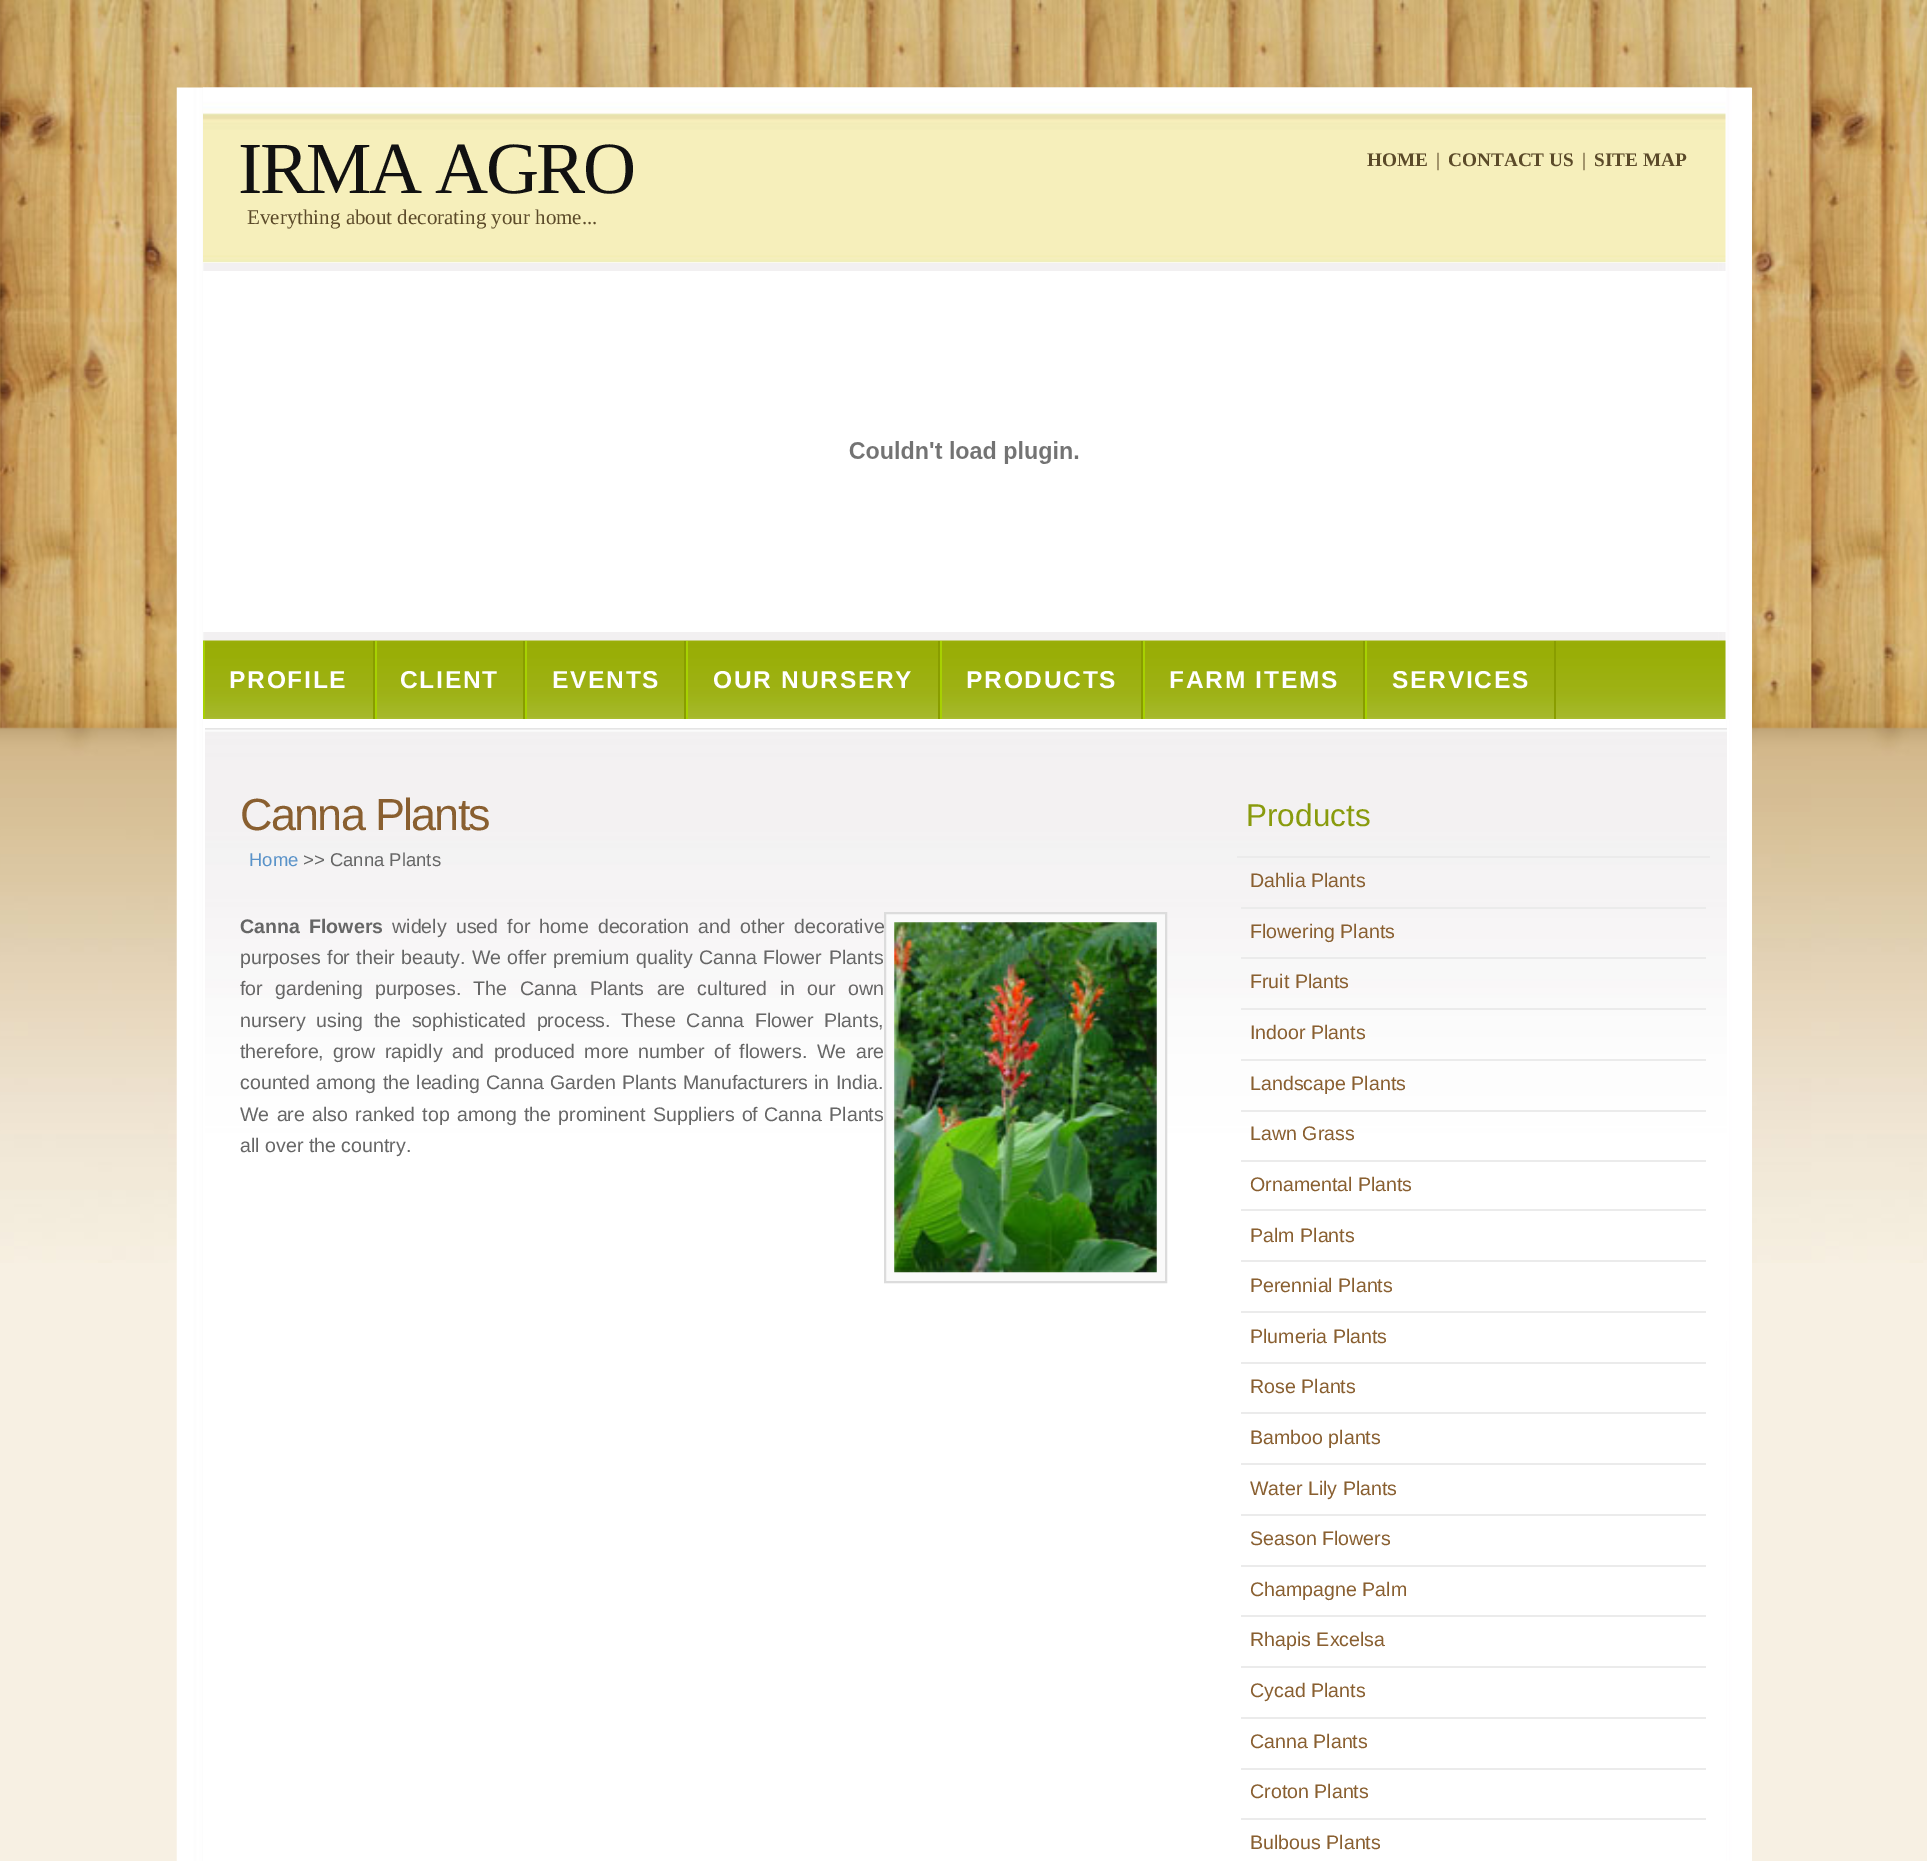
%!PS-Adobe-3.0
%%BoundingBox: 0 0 1927 1861
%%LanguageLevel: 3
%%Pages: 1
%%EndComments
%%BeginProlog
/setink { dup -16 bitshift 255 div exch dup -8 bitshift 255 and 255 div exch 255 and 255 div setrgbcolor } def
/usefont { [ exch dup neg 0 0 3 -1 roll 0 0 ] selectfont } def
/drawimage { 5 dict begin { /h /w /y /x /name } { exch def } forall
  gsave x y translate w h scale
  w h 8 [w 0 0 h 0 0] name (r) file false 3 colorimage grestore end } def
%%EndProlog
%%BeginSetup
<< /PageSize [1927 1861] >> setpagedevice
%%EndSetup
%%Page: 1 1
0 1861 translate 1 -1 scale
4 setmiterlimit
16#F7F0E3 setink
0 0 1927 1861 rectfill
(img1.raw) 0 0 1927 1263 drawimage
(img2.raw) 176 87 1576 1774 drawimage
16#FFFFFF setink
203 88 1523 175 rectfill
(img3.raw) 203 87 1523 176 drawimage
/LiberationSerif-Regular 73.5 usefont
16#111111 setink
238 193 moveto -2.6 0 (IRMA AGRO) ashow
/LiberationSerif-Bold 19.25 usefont
16#5B4A29 setink
1367 166 moveto (HOME) show
/LiberationSerif-Regular 19.25 usefont
1436 166 moveto (|) show
/LiberationSerif-Bold 19.25 usefont
1448 166 moveto (CONTACT US) show
/LiberationSerif-Regular 19.25 usefont
1582 166 moveto (|) show
/LiberationSerif-Bold 19.25 usefont
1594 166 moveto (SITE MAP) show
/LiberationSerif-Regular 21 usefont
247 224 moveto (Everything about decorating your home...) show
16#FFFFFF setink
203 271 1523 361 rectfill
(img4.raw) 849 441 230 23 drawimage
(img5.raw) 203 640 1523 79 drawimage
16#899D00 setink
373 641 2 78 rectfill
16#A7D101 setink
203 641 2 78 rectfill
/LiberationSans-Bold 24.5 usefont
16#FFFFFF setink
229 688 moveto 1.75 0 (PROFILE) ashow
16#899D00 setink
523 641 2 78 rectfill
16#A7D101 setink
375 641 2 78 rectfill
16#FFFFFF setink
400 688 moveto 1.75 0 (CLIENT) ashow
16#899D00 setink
684 641 2 78 rectfill
16#A7D101 setink
525 641 2 78 rectfill
16#FFFFFF setink
552 688 moveto 1.75 0 (EVENTS) ashow
16#899D00 setink
938 641 2 78 rectfill
16#A7D101 setink
686 641 2 78 rectfill
16#FFFFFF setink
713 688 moveto 1.75 0 (OUR NURSERY) ashow
16#899D00 setink
1141 641 2 78 rectfill
16#A7D101 setink
940 641 2 78 rectfill
16#FFFFFF setink
966 688 moveto 1.75 0 (PRODUCTS) ashow
16#899D00 setink
1363 641 2 78 rectfill
16#A7D101 setink
1143 641 2 78 rectfill
16#FFFFFF setink
1169 688 moveto 1.75 0 (FARM ITEMS) ashow
16#899D00 setink
1554 641 2 78 rectfill
16#A7D101 setink
1365 641 2 78 rectfill
16#FFFFFF setink
1392 688 moveto 1.75 0 (SERVICES) ashow
205 1340 1521 521 rectfill
(img6.raw) 205 728 1522 613 drawimage
[
    [205 719 1521 9 16#FFFFFF]
    [1727 719 2 1142 16#FFFFFF]
    [203 719 2 1142 16#FFFFFF]
] { aload pop setink rectfill } forall
/LiberationSans-Regular 45 usefont
16#895F30 setink
240 830 moveto -1.75 0 (Canna Plants) ashow
/LiberationSans-Regular 18.5 usefont
16#5A93C9 setink
249 866 moveto (Home) show
16#666666 setink
303 866 moveto (>> Canna Plants) show
/LiberationSans-Bold 19.6 usefont
240 933 moveto (Canna) show
309 933 moveto (Flowers) show
/LiberationSans-Regular 19.6 usefont
392 933 moveto 3.75 0 32 (widely used for home decoration and other decorative) widthshow
16#FAFAFA setink
885 913 moveto 1166 913 lineto 1166 1282 lineto 885 1282 lineto closepath gsave fill grestore
16#DCDCDC setink
2 setlinewidth
stroke
(img7.raw) 894 922 263 351 drawimage
16#666666 setink
240 964 moveto 1 0 32 (purposes for their beauty. We offer premium quality Canna Flower) widthshow
829 964 moveto (Plants) show
240 995 moveto 7 0 32 (for gardening purposes. The Canna Plants are cultured in our) widthshow
848 995 moveto (own) show
240 1027 moveto 5.25 0 32 (nursery using the sophisticated process. These Canna Flower) widthshow
824 1027 moveto (Plants,) show
240 1058 moveto 3.75 0 32 (therefore, grow rapidly and produced more number of flowers.) widthshow
817 1058 moveto 4 0 32 (We are) widthshow
240 1089 moveto 1 0 32 (counted among the leading Canna Garden Plants Manufacturers) widthshow
814 1089 moveto 1 0 32 (in India.) widthshow
240 1121 moveto 1.75 0 32 (We are also ranked top among the prominent Suppliers of) widthshow
764 1121 moveto 2 0 32 (Canna Plants) widthshow
240 1152 moveto (all over the country.) show
/LiberationSans-Regular 31.5 usefont
16#899B0D setink
1246 826 moveto (Products) show
16#EBEBEB setink
1237 856 473 2 rectfill
1241 907 465 2 rectfill
/LiberationSans-Regular 19.6 usefont
16#895F30 setink
1250 887 moveto (Dahlia Plants) show
16#EBEBEB setink
1241 957 465 2 rectfill
16#895F30 setink
1250 938 moveto (Flowering Plants) show
16#EBEBEB setink
1241 1008 465 2 rectfill
16#895F30 setink
1250 988 moveto (Fruit Plants) show
16#EBEBEB setink
1241 1059 465 2 rectfill
16#895F30 setink
1250 1039 moveto (Indoor Plants) show
16#EBEBEB setink
1241 1110 465 2 rectfill
16#895F30 setink
1250 1090 moveto (Landscape Plants) show
16#EBEBEB setink
1241 1160 465 2 rectfill
16#895F30 setink
1250 1140 moveto (Lawn Grass) show
16#EBEBEB setink
1241 1209 465 2 rectfill
16#895F30 setink
1250 1191 moveto (Ornamental Plants) show
16#EBEBEB setink
1241 1260 465 2 rectfill
16#895F30 setink
1250 1242 moveto (Palm Plants) show
16#EBEBEB setink
1241 1311 465 2 rectfill
16#895F30 setink
1250 1292 moveto (Perennial Plants) show
16#EBEBEB setink
1241 1362 465 2 rectfill
16#895F30 setink
1250 1343 moveto (Plumeria Plants) show
16#EBEBEB setink
1241 1412 465 2 rectfill
16#895F30 setink
1250 1393 moveto (Rose Plants) show
16#EBEBEB setink
1241 1463 465 2 rectfill
16#895F30 setink
1250 1444 moveto (Bamboo plants) show
16#EBEBEB setink
1241 1514 465 2 rectfill
16#895F30 setink
1250 1495 moveto (Water Lily Plants) show
16#EBEBEB setink
1241 1565 465 2 rectfill
16#895F30 setink
1250 1545 moveto (Season Flowers) show
16#EBEBEB setink
1241 1615 465 2 rectfill
16#895F30 setink
1250 1596 moveto (Champagne Palm) show
16#EBEBEB setink
1241 1666 465 2 rectfill
16#895F30 setink
1250 1646 moveto (Rhapis Excelsa) show
16#EBEBEB setink
1241 1717 465 2 rectfill
16#895F30 setink
1250 1697 moveto (Cycad Plants) show
16#EBEBEB setink
1241 1768 465 2 rectfill
16#895F30 setink
1250 1748 moveto (Canna Plants) show
16#EBEBEB setink
1241 1818 465 2 rectfill
16#895F30 setink
1250 1798 moveto (Croton Plants) show
1250 1849 moveto (Bulbous Plants) show
showpage
%%EOF
